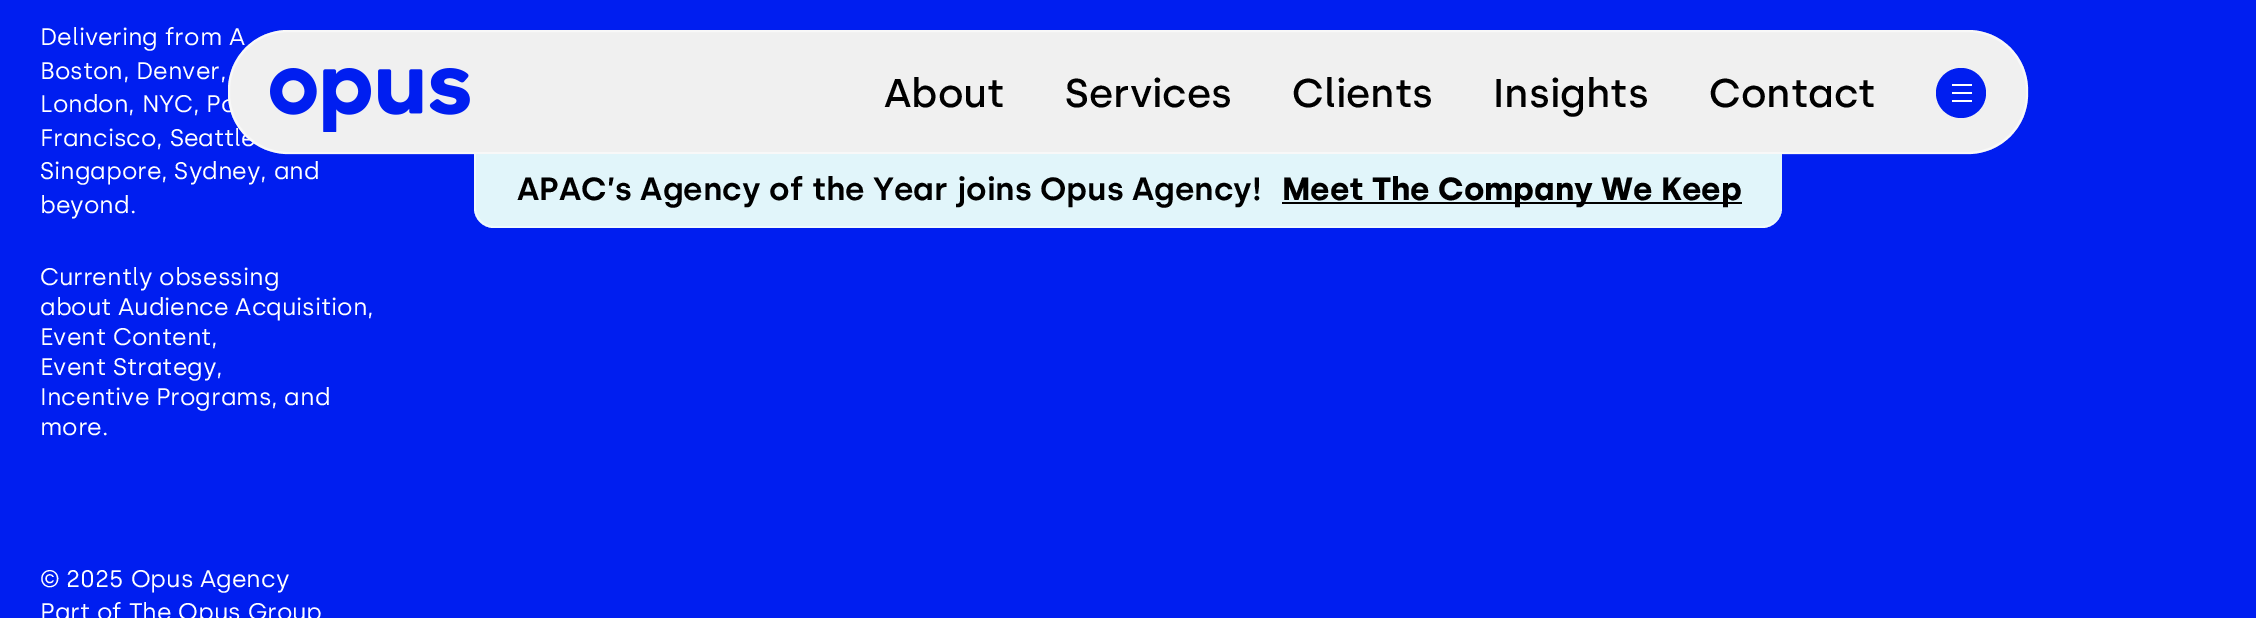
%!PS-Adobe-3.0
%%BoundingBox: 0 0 2256 618
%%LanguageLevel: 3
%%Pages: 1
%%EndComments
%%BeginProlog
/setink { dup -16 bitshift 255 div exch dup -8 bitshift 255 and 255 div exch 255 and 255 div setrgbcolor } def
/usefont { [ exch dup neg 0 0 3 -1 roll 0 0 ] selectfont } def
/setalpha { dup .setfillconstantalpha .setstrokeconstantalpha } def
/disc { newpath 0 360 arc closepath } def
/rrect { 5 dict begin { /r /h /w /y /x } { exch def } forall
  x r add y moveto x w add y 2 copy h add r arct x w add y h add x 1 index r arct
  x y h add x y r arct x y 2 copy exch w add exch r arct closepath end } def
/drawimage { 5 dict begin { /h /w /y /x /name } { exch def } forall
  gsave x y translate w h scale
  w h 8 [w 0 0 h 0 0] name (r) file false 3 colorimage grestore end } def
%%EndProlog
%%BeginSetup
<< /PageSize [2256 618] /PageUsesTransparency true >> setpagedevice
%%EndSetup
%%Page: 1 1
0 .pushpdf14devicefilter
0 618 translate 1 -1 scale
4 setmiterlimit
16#001EF0 setink
0 0 2256 618 rectfill
/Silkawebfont-Regular 24 usefont
16#FFFFFF setink
[
    [(Delivering from A) 40 45]
    [(Boston, Denver,) 40 79]
    [(London, NYC, Po) 40 112]
    [(Francisco, Seattle) 40 146]
    [(Singapore, Sydney, and) 40 179]
    [(beyond.) 40 213]
    [(Currently obsessing) 40 285]
    [(about Audience Acquisition,) 40 315]
    [(Event Content,) 40 345]
    [(Event Strategy,) 40 375]
    [(Incentive Programs, and) 40 405]
    [(more.) 40 435]
    [(© 2025 Opus Agency) 40 587]
    [(Part of The Opus Group) 40 620]
] { aload pop moveto show } forall
16#F0F0F0 setink
228 30 1800 124 60 rrect fill
0.5 setalpha
16#FFFFFF setink
2 setlinewidth
229 31 1798 122 59 rrect stroke
1 setalpha
(img1.raw) 270 68 200 64 drawimage
/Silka-Medium 40 usefont
16#000000 setink
[
    [(About) 884 107]
    [(Services) 1065 107]
    [(Clients) 1292 107]
    [(Insights) 1493 107]
    [(Contact) 1709 107]
] { aload pop moveto show } forall
16#001EF0 setink
1961 93 25 disc fill
[
    [1952 84 20 2 16#FFFFFF]
    [1952 92 20 2 16#FFFFFF]
    [1952 100 20 2 16#FFFFFF]
] { aload pop setink rectfill } forall
16#E1F5FA setink
474 154 moveto 1782 154 lineto 1782 208 lineto 1782 219 1773 228 1762 228 curveto 494 228 lineto 483 228 474 219 474 208 curveto closepath fill
0.5 setalpha
16#FFFFFF setink
474 154 moveto 1782 154 lineto 1782 208 lineto 1782 219 1773 228 1762 228 curveto 494 228 lineto 483 228 474 219 474 208 curveto closepath 476 154 moveto 1782 154 lineto 1782 208 lineto 1782 218 1773 226 1762 226 curveto 494 226 lineto 484 226 476 218 476 208 curveto closepath eofill
/Silka-SemiBold 32 usefont
1 setalpha
16#000000 setink
517 200 moveto (APAC’s Agency of the Year joins Opus Agency!) show
1282 202 460 2 rectfill
/Silka-Bold 32 usefont
1282 200 moveto (Meet The Company We Keep) show
.poppdf14devicefilter showpage
%%EOF
